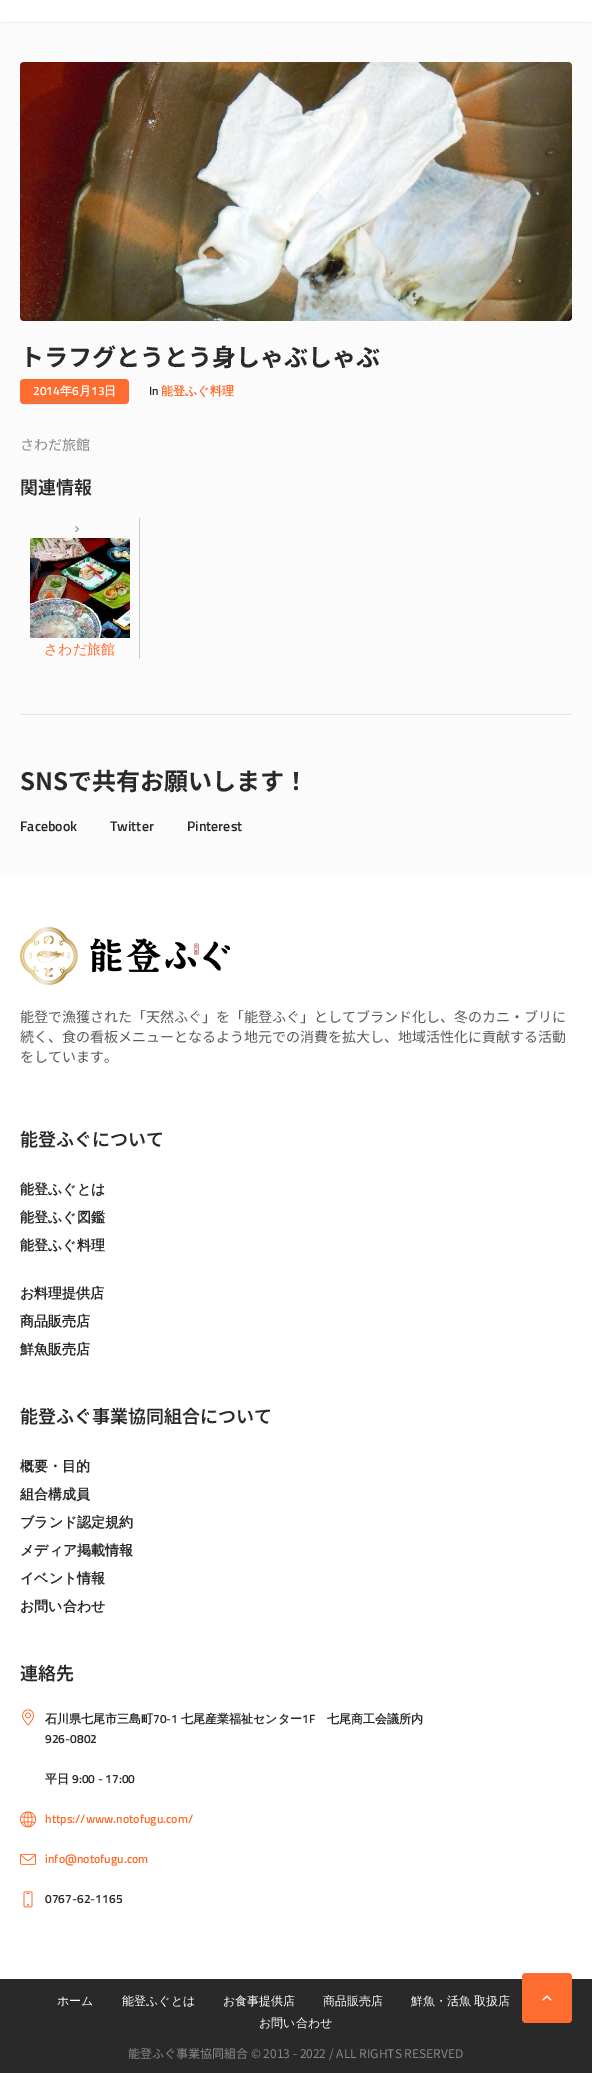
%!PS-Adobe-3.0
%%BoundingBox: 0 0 592 2073
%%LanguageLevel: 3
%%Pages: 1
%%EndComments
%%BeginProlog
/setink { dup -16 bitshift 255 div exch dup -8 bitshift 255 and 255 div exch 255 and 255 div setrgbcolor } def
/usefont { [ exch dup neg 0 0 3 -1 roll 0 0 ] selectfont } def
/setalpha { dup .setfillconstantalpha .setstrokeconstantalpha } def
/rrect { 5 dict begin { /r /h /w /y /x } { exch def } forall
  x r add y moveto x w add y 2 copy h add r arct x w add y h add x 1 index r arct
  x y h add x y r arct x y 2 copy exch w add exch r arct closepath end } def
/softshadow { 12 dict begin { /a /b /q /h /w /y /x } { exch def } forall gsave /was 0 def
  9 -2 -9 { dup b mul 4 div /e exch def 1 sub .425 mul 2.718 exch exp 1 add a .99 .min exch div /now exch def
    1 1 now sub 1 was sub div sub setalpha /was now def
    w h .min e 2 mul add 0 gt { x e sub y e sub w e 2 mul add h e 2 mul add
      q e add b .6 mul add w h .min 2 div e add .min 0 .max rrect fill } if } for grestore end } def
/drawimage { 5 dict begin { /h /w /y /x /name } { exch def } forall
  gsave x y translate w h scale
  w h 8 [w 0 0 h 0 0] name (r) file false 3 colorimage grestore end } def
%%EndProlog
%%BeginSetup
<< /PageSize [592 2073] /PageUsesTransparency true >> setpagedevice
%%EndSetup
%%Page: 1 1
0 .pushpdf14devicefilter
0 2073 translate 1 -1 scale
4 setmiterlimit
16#FBFBFB setink
0 0 592 2073 rectfill
16#000000 setink
0 -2 592 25 0 0.5 0.05 softshadow
[
    [0 0 592 22 16#FFFFFF]
    [20 715 552 1 16#FEFEFE]
    [20 714 552 1 16#E4E4E4]
] { aload pop setink rectfill } forall
(img1.raw) 20 62 552 259 drawimage
/NotoSansJP-Bold 24 usefont
16#292929 setink
20 366 moveto (トラフグとうとう身しゃぶしゃぶ) show
16#000000 setink
20 380 109 25 4 0.5 0.05 softshadow
16#FF6C2F setink
20 379 109 25 4 rrect fill
16#999999 setink
[1 1] 0 setdash
33 401.5 moveto 116 401.5 lineto stroke
/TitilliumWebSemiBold-SemiBold 12 usefont
16#FFFFFF setink
33 395 moveto (2014) show
/WenQuanYiZenHei-Bold 12 usefont
60 395 moveto (年) show
/TitilliumWebSemiBold-SemiBold 12 usefont
72 395 moveto (6) show
/WenQuanYiZenHei-Bold 12 usefont
79 395 moveto (月) show
/TitilliumWebSemiBold-SemiBold 12 usefont
91 395 moveto (13) show
/WenQuanYiZenHei-Bold 12 usefont
104 395 moveto (日) show
/TitilliumWebSemiBold-SemiBold 12 usefont
16#292929 setink
149 395 moveto (In) show
/WenQuanYiZenHei-Bold 12 usefont
16#FF6C2F setink
161 395 moveto (能登ふぐ料理) show
/NotoSansJP-Regular 14 usefont
16#878787 setink
20 450 moveto (さわだ旅館) show
/NotoSansJP-SemiBold 18 usefont
16#292929 setink
20 494 moveto (関連情報) show
16#CCCCCC setink
139 518 1 141 rectfill
(img2.raw) 75 525 4 8 drawimage
(img3.raw) 30 538 100 100 drawimage
/WenQuanYiZenHei-Medium 14 usefont
16#FF6C2F setink
44 654 moveto (さわだ旅館) show
/NotoSansJP-Bold 24 usefont
16#292929 setink
20 790 moveto (SNSで共有お願いします！) show
/TitilliumWebSemiBold-SemiBold 14 usefont
[
    [(Facebook) 20 831]
    [(Twitter) 110 831]
    [(Pinterest) 187 831]
] { aload pop moveto show } forall
16#FFFFFF setink
0 876 592 1103 rectfill
(img4.raw) 20 927 210 58 drawimage
/NotoSansJP-Regular 14 usefont
16#595959 setink
[
    [(能登で漁獲された「天然ふぐ」を「能登ふぐ」としてブランド化し、冬のカニ・ブリに) 20 1022]
    [(続く、食の看板メニューとなるよう地元での消費を拡大し、地域活性化に貢献する活動) 20 1042]
    [(をしています。) 20 1062]
] { aload pop moveto show } forall
/NotoSansJP-SemiBold 18 usefont
16#292929 setink
20 1146 moveto (能登ふぐについて) show
/WenQuanYiZenHei-Bold 14 usefont
[
    [(能登ふぐとは) 20 1194]
    [(能登ふぐ図鑑) 20 1222]
    [(能登ふぐ料理) 20 1250]
    [(お料理提供店) 20 1298]
    [(商品販売店) 20 1326]
    [(鮮魚販売店) 20 1354]
] { aload pop moveto show } forall
/NotoSansJP-SemiBold 18 usefont
20 1423 moveto (能登ふぐ事業協同組合について) show
/WenQuanYiZenHei-Bold 14 usefont
[
    [(概要・目的) 20 1471]
    [(組合構成員) 20 1499]
    [(ブランド認定規約) 20 1527]
    [(メディア掲載情報) 20 1555]
    [(イベント情報) 20 1583]
    [(お問い合わせ) 20 1611]
] { aload pop moveto show } forall
/NotoSansJP-SemiBold 18 usefont
20 1680 moveto (連絡先) show
(img5.raw) 22 1709 12 17 drawimage
/WenQuanYiZenHei-Bold 12 usefont
45 1723 moveto (石川県七尾市三島町) show
/TitilliumWebSemiBold-SemiBold 12 usefont
153 1723 moveto (70-1) show
/WenQuanYiZenHei-Bold 12 usefont
181 1723 moveto (七尾産業福祉センター) show
/TitilliumWebSemiBold-SemiBold 12 usefont
302 1723 moveto (1F) show
/WenQuanYiZenHei-Bold 12 usefont
327 1723 moveto (七尾商工会議所内) show
/TitilliumWebSemiBold-SemiBold 12 usefont
45 1743 moveto (926-0802) show
/WenQuanYiZenHei-Bold 12 usefont
45 1783 moveto (平日) show
/TitilliumWebSemiBold-SemiBold 12 usefont
72 1783 moveto (9:00 - 17:00) show
(img6.raw) 20 1811 17 17 drawimage
16#FF6C2F setink
45 1823 moveto (https://www.notofugu.com/) show
(img7.raw) 20 1853 16 12 drawimage
45 1863 moveto (info@notofugu.com) show
(img8.raw) 23 1891 10 17 drawimage
16#292929 setink
45 1903 moveto (0767-62-1165) show
0 1979 592 94 rectfill
16#FF6C2F setink
522 1973 50 50 4 rrect fill
(img9.raw) 542 1995 10 6 drawimage
/WenQuanYiZenHei-Medium 12 usefont
16#FFFFFF setink
[
    [(ホーム) 57 2005]
    [(能登ふぐとは) 122 2005]
    [(お食事提供店) 223 2005]
    [(商品販売店) 323 2005]
] { aload pop moveto show } forall
411 2005 moveto -1 0 32 (鮮魚・活魚 取扱店) widthshow
259 2027 moveto (お問い合わせ) show
/NotoSansJP-Regular 12 usefont
16#878787 setink
128 2058 moveto (能登ふぐ事業協同組合 © 2013 - 2022 / ALL RIGHTS RESERVED) show
.poppdf14devicefilter showpage
%%EOF
